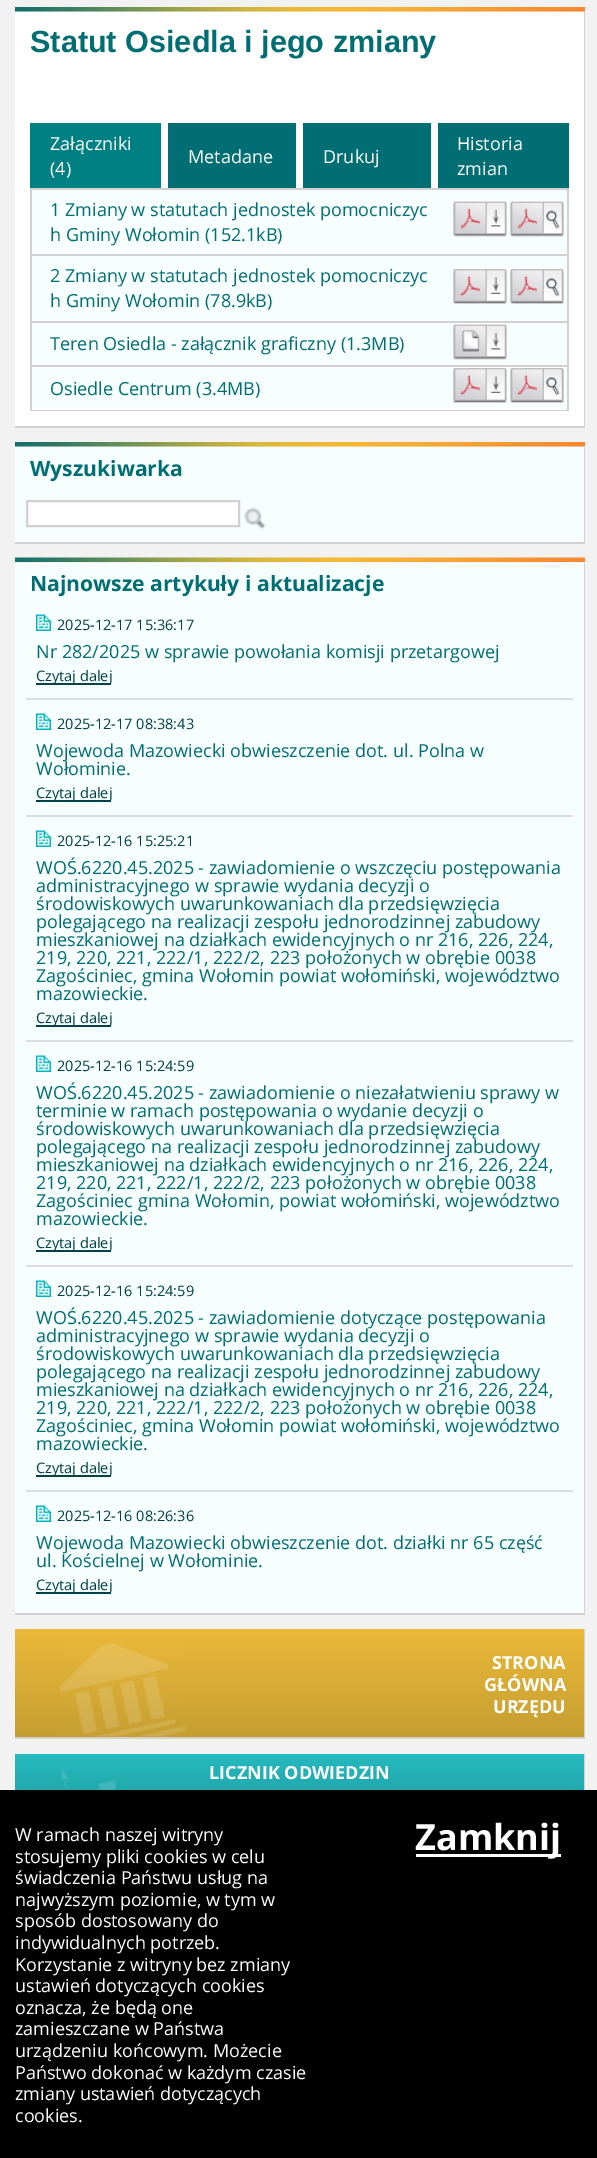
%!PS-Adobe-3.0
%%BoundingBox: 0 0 597 2158
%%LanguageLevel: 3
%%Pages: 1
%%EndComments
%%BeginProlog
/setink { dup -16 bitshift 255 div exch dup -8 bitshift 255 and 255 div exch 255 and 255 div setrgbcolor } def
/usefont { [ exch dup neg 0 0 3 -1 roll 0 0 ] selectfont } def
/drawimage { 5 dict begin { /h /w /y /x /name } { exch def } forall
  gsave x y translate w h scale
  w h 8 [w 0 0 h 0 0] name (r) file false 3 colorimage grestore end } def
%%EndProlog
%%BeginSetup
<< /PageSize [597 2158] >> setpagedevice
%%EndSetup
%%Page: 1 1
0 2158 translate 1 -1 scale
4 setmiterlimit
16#F2F2F2 setink
0 0 597 2158 rectfill
(img1.raw) 15 7 570 5 drawimage
[
    [15 12 569 414 16#FFFFFF]
    [584 12 1 416 16#D1D1D1]
    [15 426 570 2 16#D1D1D1]
] { aload pop setink rectfill } forall
/LiberationSans-Bold 30.6 usefont
16#006E73 setink
30 52 moveto (Statut Osiedla i jego zmiany) show
16#018084 setink
30 123 131 65 rectfill
/OpenSans-Regular 18 usefont
16#FFFFFF setink
50 150 moveto (Załączniki) show
50 175 moveto (\(4\)) show
16#016E73 setink
168 123 128 65 rectfill
16#FFFFFF setink
188 163 moveto (Metadane) show
16#016E73 setink
303 123 128 65 rectfill
16#FFFFFF setink
323 163 moveto (Drukuj) show
16#016E73 setink
438 123 131 65 rectfill
16#FFFFFF setink
457 150 moveto (Historia) show
457 175 moveto (zmian) show
[
    [30 188 539 2 16#D1D1D1]
    [30 254 539 2 16#D1D1D1]
    [30 321 539 2 16#D1D1D1]
    [30 365 539 2 16#D1D1D1]
    [567 365 2 46 16#D1D1D1]
    [567 321 2 45 16#D1D1D1]
    [567 254 2 69 16#D1D1D1]
    [567 188 2 67 16#D1D1D1]
    [30 410 539 1 16#D1D1D1]
    [30 365 2 46 16#D1D1D1]
    [30 321 2 45 16#D1D1D1]
    [30 254 2 69 16#D1D1D1]
    [30 188 2 67 16#D1D1D1]
    [32 190 535 64 16#F6FEFE]
] { aload pop setink rectfill } forall
16#006E73 setink
50 216 moveto (1 Zmiany w statutach jednostek pomocniczyc) show
50 241 moveto (h Gminy Wołomin \(152.1kB\)) show
(img2.raw) 453 200 54 37 drawimage
(img3.raw) 510 200 54 37 drawimage
16#F6FEFE setink
32 256 535 65 rectfill
16#006E73 setink
50 282 moveto (2 Zmiany w statutach jednostek pomocniczyc) show
50 307 moveto (h Gminy Wołomin \(78.9kB\)) show
(img4.raw) 453 268 54 36 drawimage
(img5.raw) 510 268 54 36 drawimage
16#F6FEFE setink
32 323 535 42 rectfill
16#006E73 setink
50 350 moveto (Teren Osiedla - załącznik graficzny \(1.3MB\)) show
(img6.raw) 453 323 54 37 drawimage
16#F6FEFE setink
32 367 535 43 rectfill
16#006E73 setink
50 395 moveto (Osiedle Centrum \(3.4MB\)) show
(img4.raw) 453 367 54 36 drawimage
(img5.raw) 510 367 54 36 drawimage
(img1.raw) 15 442 570 5 drawimage
[
    [15 447 569 95 16#F6FEFE]
    [584 447 1 96 16#D1D1D1]
    [15 542 570 2 16#D1D1D1]
] { aload pop setink rectfill } forall
/OpenSans-Bold 21.1 usefont
16#006E73 setink
30 476 moveto (Wyszukiwarka) show
16#FFFFFF setink
27 501 moveto 239 501 lineto 239 526 lineto 27 526 lineto closepath gsave fill grestore
16#D1D1D1 setink
2 setlinewidth
stroke
(img7.raw) 244 507 22 23 drawimage
(img8.raw) 15 557 570 5 drawimage
[
    [15 563 569 1050 16#F6FEFE]
    [584 563 1 1051 16#D1D1D1]
    [15 1613 570 2 16#D1D1D1]
] { aload pop setink rectfill } forall
16#006E73 setink
30 591 moveto (Najnowsze artykuły i aktualizacje) show
(img9.raw) 36 614 15 17 drawimage
/OpenSans-Regular 14.5 usefont
16#004245 setink
57 630 moveto (2025-12-17 15:36:17) show
/OpenSans-Regular 18 usefont
16#006E73 setink
36 658 moveto (Nr 282/2025 w sprawie powołania komisji przetargowej) show
16#004245 setink
36 683 75 2 rectfill
/OpenSans-Regular 14.5 usefont
36 681 moveto (Czytaj dalej) show
16#DDDDDD setink
26 698 547 2 rectfill
(img9.raw) 36 713 15 17 drawimage
16#004245 setink
57 729 moveto (2025-12-17 08:38:43) show
/OpenSans-Regular 18 usefont
16#006E73 setink
36 757 moveto (Wojewoda Mazowiecki obwieszczenie dot. ul. Polna w) show
36 775 moveto (Wołominie.) show
16#004245 setink
36 800 75 2 rectfill
/OpenSans-Regular 14.5 usefont
36 798 moveto (Czytaj dalej) show
16#DDDDDD setink
26 815 547 2 rectfill
(img9.raw) 36 830 15 17 drawimage
16#004245 setink
57 846 moveto (2025-12-16 15:25:21) show
/OpenSans-Regular 18 usefont
16#006E73 setink
[
    [(WOŚ.6220.45.2025 - zawiadomienie o wszczęciu postępowania) 36 874]
    [(administracyjnego w sprawie wydania decyzji o) 36 892]
    [(środowiskowych uwarunkowaniach dla przedsięwzięcia) 36 910]
    [(polegającego na realizacji zespołu jednorodzinnej zabudowy) 36 928]
    [(mieszkaniowej na działkach ewidencyjnych o nr 216, 226, 224,) 36 946]
    [(219, 220, 221, 222/1, 222/2, 223 położonych w obrębie 0038) 36 964]
    [(Zagościniec, gmina Wołomin powiat wołomiński, województwo) 36 982]
    [(mazowieckie.) 36 1000]
] { aload pop moveto show } forall
16#004245 setink
36 1025 75 2 rectfill
/OpenSans-Regular 14.5 usefont
36 1023 moveto (Czytaj dalej) show
16#DDDDDD setink
26 1040 547 2 rectfill
(img9.raw) 36 1055 15 17 drawimage
16#004245 setink
57 1071 moveto (2025-12-16 15:24:59) show
/OpenSans-Regular 18 usefont
16#006E73 setink
[
    [(WOŚ.6220.45.2025 - zawiadomienie o niezałatwieniu sprawy w) 36 1099]
    [(terminie w ramach postępowania o wydanie decyzji o) 36 1117]
    [(środowiskowych uwarunkowaniach dla przedsięwzięcia) 36 1135]
    [(polegającego na realizacji zespołu jednorodzinnej zabudowy) 36 1153]
    [(mieszkaniowej na działkach ewidencyjnych o nr 216, 226, 224,) 36 1171]
    [(219, 220, 221, 222/1, 222/2, 223 położonych w obrębie 0038) 36 1189]
    [(Zagościniec gmina Wołomin, powiat wołomiński, województwo) 36 1207]
    [(mazowieckie.) 36 1225]
] { aload pop moveto show } forall
16#004245 setink
36 1250 75 2 rectfill
/OpenSans-Regular 14.5 usefont
36 1248 moveto (Czytaj dalej) show
16#DDDDDD setink
26 1265 547 2 rectfill
(img9.raw) 36 1280 15 17 drawimage
16#004245 setink
57 1296 moveto (2025-12-16 15:24:59) show
/OpenSans-Regular 18 usefont
16#006E73 setink
[
    [(WOŚ.6220.45.2025 - zawiadomienie dotyczące postępowania) 36 1324]
    [(administracyjnego w sprawie wydania decyzji o) 36 1342]
    [(środowiskowych uwarunkowaniach dla przedsięwzięcia) 36 1360]
    [(polegającego na realizacji zespołu jednorodzinnej zabudowy) 36 1378]
    [(mieszkaniowej na działkach ewidencyjnych o nr 216, 226, 224,) 36 1396]
    [(219, 220, 221, 222/1, 222/2, 223 położonych w obrębie 0038) 36 1414]
    [(Zagościniec, gmina Wołomin powiat wołomiński, województwo) 36 1432]
    [(mazowieckie.) 36 1450]
] { aload pop moveto show } forall
16#004245 setink
36 1475 75 2 rectfill
/OpenSans-Regular 14.5 usefont
36 1473 moveto (Czytaj dalej) show
16#DDDDDD setink
26 1490 547 2 rectfill
(img9.raw) 36 1505 15 17 drawimage
16#004245 setink
57 1521 moveto (2025-12-16 08:26:36) show
/OpenSans-Regular 18 usefont
16#006E73 setink
36 1549 moveto (Wojewoda Mazowiecki obwieszczenie dot. działki nr 65 część) show
36 1567 moveto (ul. Kościelnej w Wołominie.) show
16#004245 setink
36 1592 75 2 rectfill
/OpenSans-Regular 14.5 usefont
36 1590 moveto (Czytaj dalej) show
gsave 15 1629 moveto 584 1629 lineto 584 1737 lineto 15 1737 lineto closepath clip newpath
<< /ShadingType 2 /ColorSpace /DeviceRGB /Coords [299 1629 299 1737] /Extend [true true] /Function << /FunctionType 2 /Domain [0 1] /C0 [0.922 0.725 0.224] /C1 [0.773 0.62 0.192] /N 1 >> >> shfill grestore
16#D1D1D1 setink
584 1629 1 110 rectfill
15 1737 570 2 rectfill
(img10.raw) 59 1643 128 94 drawimage
/OpenSans-Bold 18 usefont
16#FFFFFF setink
[
    [(STRONA) 492 1669]
    [(GŁÓWNA) 484 1691]
    [(URZĘDU) 493 1713]
] { aload pop moveto show } forall
gsave 15 1754 moveto 584 1754 lineto 584 1790 lineto 15 1790 lineto closepath clip newpath
<< /ShadingType 2 /ColorSpace /DeviceRGB /Coords [299 1754 299 1862] /Extend [true true] /Function << /FunctionType 2 /Domain [0 1] /C0 [0.145 0.729 0.749] /C1 [0.106 0.533 0.549] /N 1 >> >> shfill grestore
16#D1D1D1 setink
584 1754 1 36 rectfill
(img11.raw) 61 1768 56 22 drawimage
16#FFFFFF setink
209 1779 moveto (LICZNIK ODWIEDZIN) show
16#000000 setink
0 1790 597 368 rectfill
/OpenSans-Regular 18 usefont
16#FFFFFF setink
[
    [(W ramach naszej witryny) 15 1841]
    [(stosujemy pliki cookies w celu) 15 1863]
    [(świadczenia Państwu usług na) 15 1884]
    [(najwyższym poziomie, w tym w) 15 1906]
    [(sposób dostosowany do) 15 1927]
    [(indywidualnych potrzeb.) 15 1949]
    [(Korzystanie z witryny bez zmiany) 15 1971]
    [(ustawień dotyczących cookies) 15 1992]
    [(oznacza, że będą one) 15 2014]
    [(zamieszczane w Państwa) 15 2035]
    [(urządzeniu końcowym. Możecie) 15 2057]
    [(Państwo dokonać w każdym czasie) 15 2079]
    [(zmiany ustawień dotyczących) 15 2100]
    [(cookies.) 15 2122]
] { aload pop moveto show } forall
416 1854 145 3 rectfill
/OpenSans-Bold 36 usefont
415 1850 moveto (Zamknij) show
showpage
%%EOF
